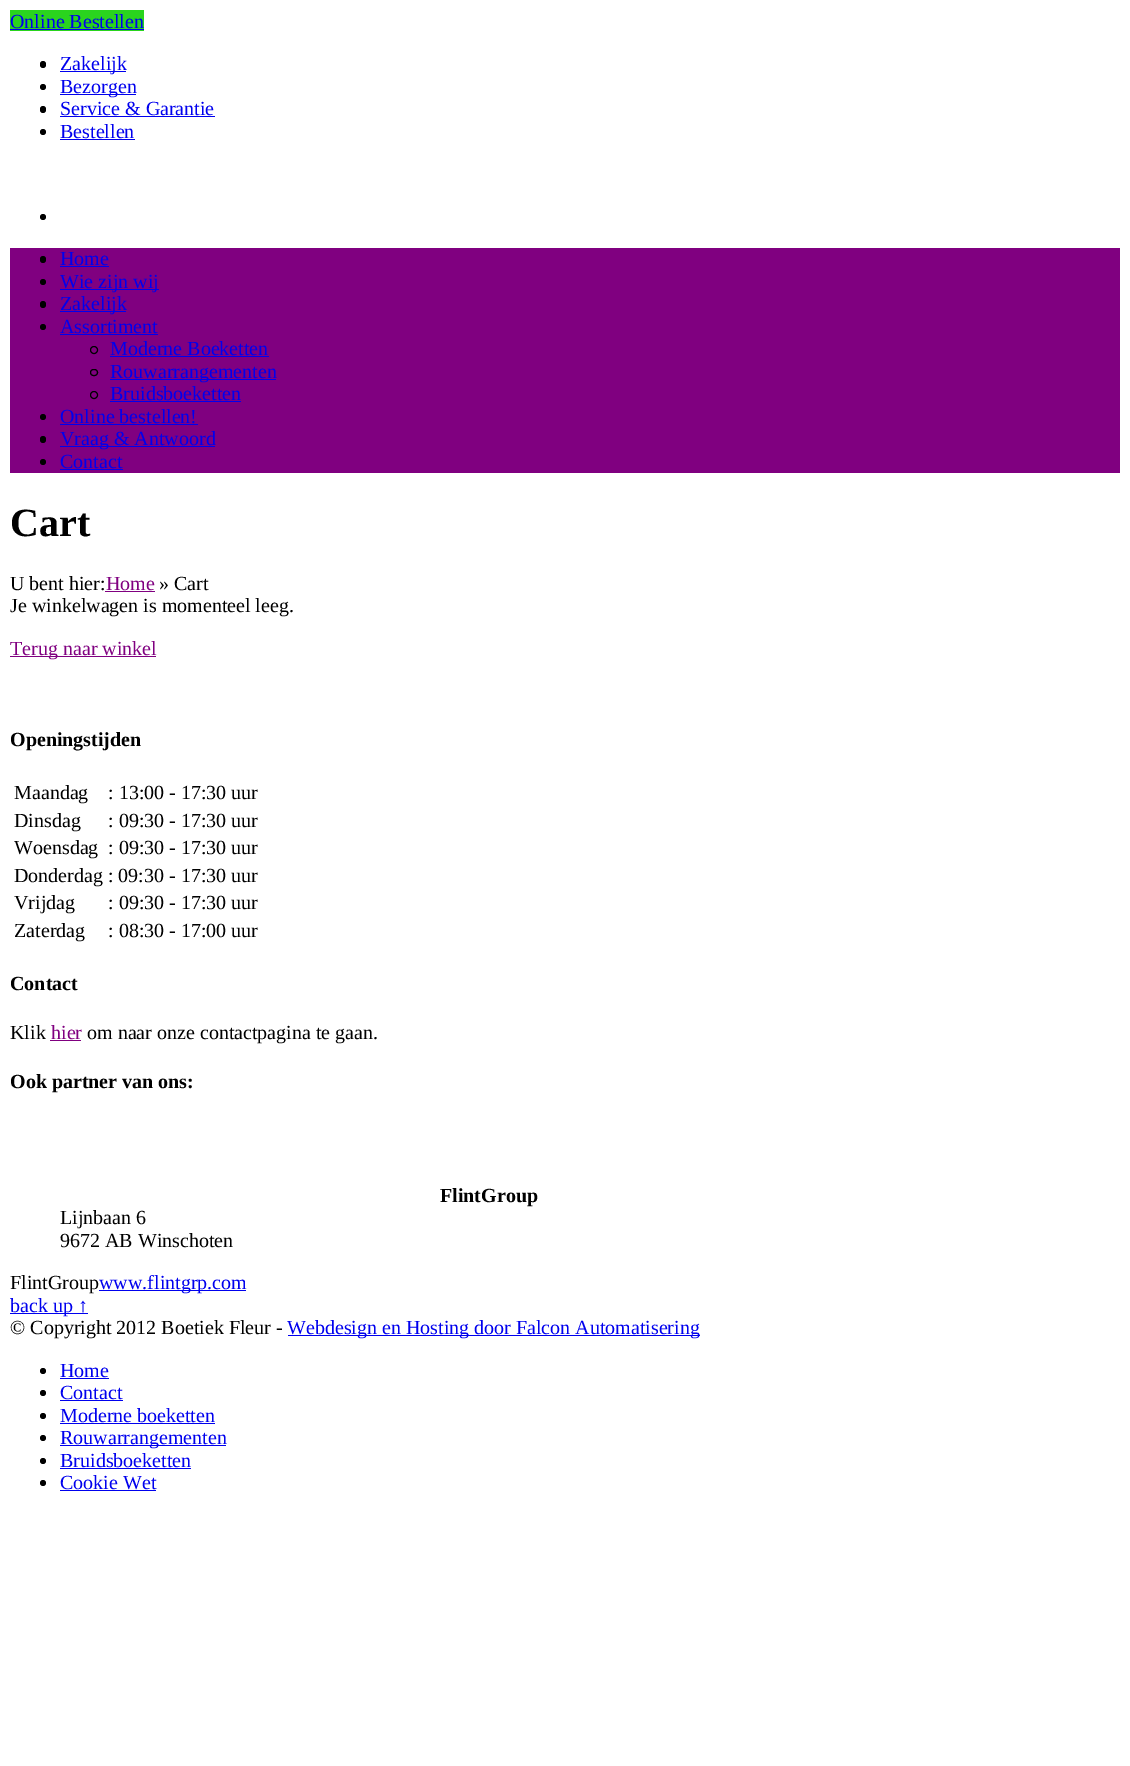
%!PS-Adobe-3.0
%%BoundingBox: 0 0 1130 1766
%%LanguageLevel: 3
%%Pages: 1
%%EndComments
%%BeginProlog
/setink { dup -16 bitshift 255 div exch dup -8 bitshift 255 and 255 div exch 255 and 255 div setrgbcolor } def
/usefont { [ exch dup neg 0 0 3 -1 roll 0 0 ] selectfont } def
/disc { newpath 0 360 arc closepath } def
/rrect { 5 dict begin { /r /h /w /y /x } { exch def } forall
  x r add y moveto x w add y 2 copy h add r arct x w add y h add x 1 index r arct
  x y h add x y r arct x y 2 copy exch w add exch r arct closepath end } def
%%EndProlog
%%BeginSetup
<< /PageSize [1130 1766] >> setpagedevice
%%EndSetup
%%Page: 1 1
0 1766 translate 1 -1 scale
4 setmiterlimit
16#FFFFFF setink
0 0 1130 1766 rectfill
16#2AD41E setink
10 10 134 21 rectfill
/LiberationSerif-Regular 20 usefont
16#0000EE setink
10 28 moveto (Online Bestellen) show
10 29 134 1 rectfill
16#000000 setink
40 61 6 7 3 rrect fill
16#0000EE setink
60 71 66 1 rectfill
60 70 moveto (Zakelijk) show
16#000000 setink
43 87 3 disc fill
16#0000EE setink
60 94 76 1 rectfill
60 93 moveto (Bezorgen) show
16#000000 setink
40 106 6 7 3 rrect fill
16#0000EE setink
60 115 moveto (Service & Garantie) show
60 116 155 1 rectfill
16#000000 setink
43 132 3 disc fill
16#0000EE setink
60 138 moveto (Bestellen) show
60 139 75 1 rectfill
16#000000 setink
43 217 3 disc fill
16#800080 setink
10 248 1110 225 rectfill
16#000000 setink
40 256 6 7 3 rrect fill
16#0000EE setink
60 265 moveto (Home) show
60 266 49 1 rectfill
16#000000 setink
43 282 3 disc fill
16#0000EE setink
60 289 99 1 rectfill
60 288 moveto (Wie zijn wij) show
16#000000 setink
40 301 6 7 3 rrect fill
16#0000EE setink
60 311 66 1 rectfill
60 310 moveto (Zakelijk) show
16#000000 setink
43 327 3 disc fill
16#0000EE setink
60 333 moveto (Assortiment) show
60 334 98 1 rectfill
16#000000 setink
94 350 3.5 disc stroke
16#0000EE setink
110 355 moveto (Moderne Boeketten) show
110 356 159 1 rectfill
16#000000 setink
90.5 369.5 7 6 3 rrect stroke
16#0000EE setink
110 379 166 1 rectfill
110 378 moveto (Rouwarrangementen) show
16#000000 setink
94 395 3.5 disc stroke
16#0000EE setink
110 400 moveto (Bruidsboeketten) show
110 401 131 1 rectfill
16#000000 setink
43 417 3 disc fill
16#0000EE setink
60 423 moveto (Online bestellen!) show
60 424 138 1 rectfill
16#000000 setink
40 436 6 7 3 rrect fill
16#0000EE setink
60 446 155 1 rectfill
60 445 moveto (Vraag & Antwoord) show
16#000000 setink
43 462 3 disc fill
16#0000EE setink
60 468 moveto (Contact) show
60 469 63 1 rectfill
/LiberationSerif-Bold 40 usefont
16#000000 setink
10 536 moveto (Cart) show
/LiberationSerif-Regular 20 usefont
10 590 moveto (U bent hier:) show
16#800080 setink
106 590 moveto (Home) show
105 591 50 1 rectfill
16#000000 setink
159 590 moveto (» Cart) show
10 612 moveto (Je winkelwagen is momenteel leeg.) show
16#800080 setink
10 656 146 1 rectfill
10 655 moveto (Terug naar winkel) show
/LiberationSerif-Bold 20 usefont
16#000000 setink
10 746 moveto (Openingstijden) show
/LiberationSerif-Regular 20 usefont
[
    [(Maandag) 14 799]
    [(: 13:00 - 17:30 uur) 108 799]
    [(Dinsdag) 14 827]
    [(: 09:30 - 17:30 uur) 108 827]
    [(Woensdag) 14 854]
    [(: 09:30 - 17:30 uur) 108 854]
    [(Donderdag : 09:30 - 17:30 uur) 14 882]
    [(Vrijdag) 14 909]
    [(: 09:30 - 17:30 uur) 108 909]
    [(Zaterdag) 14 937]
    [(: 08:30 - 17:00 uur) 108 937]
] { aload pop moveto show } forall
/LiberationSerif-Bold 20 usefont
10 990 moveto (Contact) show
/LiberationSerif-Regular 20 usefont
10 1039 moveto (Klik) show
16#800080 setink
51 1039 moveto (hier) show
50 1040 31 1 rectfill
16#000000 setink
87 1039 moveto (om naar onze contactpagina te gaan.) show
/LiberationSerif-Bold 20 usefont
10 1088 moveto (Ook partner van ons:) show
440 1202 moveto (FlintGroup) show
/LiberationSerif-Regular 20 usefont
[
    [(Lijnbaan 6) 60 1224]
    [(9672 AB Winschoten) 60 1247]
    [(FlintGroup) 10 1289]
] { aload pop moveto show } forall
16#0000EE setink
99 1290 147 1 rectfill
99 1289 moveto (www.flintgrp.com) show
10 1313 78 1 rectfill
10 1312 moveto (back up ↑) show
16#000000 setink
10 1334 moveto (© Copyright 2012 Boetiek Fleur -) show
16#0000EE setink
288 1335 412 1 rectfill
287 1334 moveto (Webdesign en Hosting door Falcon Automatisering) show
16#000000 setink
43 1371 3 disc fill
16#0000EE setink
60 1377 moveto (Home) show
60 1378 49 1 rectfill
16#000000 setink
43 1393 3 disc fill
16#0000EE setink
60 1399 moveto (Contact) show
60 1400 63 1 rectfill
16#000000 setink
43 1416 3 disc fill
16#0000EE setink
60 1422 moveto (Moderne boeketten) show
60 1423 155 1 rectfill
16#000000 setink
43 1438 3 disc fill
16#0000EE setink
60 1445 166 1 rectfill
60 1444 moveto (Rouwarrangementen) show
16#000000 setink
43 1461 3 disc fill
16#0000EE setink
60 1467 moveto (Bruidsboeketten) show
60 1468 131 1 rectfill
16#000000 setink
43 1483 3 disc fill
16#0000EE setink
60 1489 moveto (Cookie Wet) show
60 1490 96 1 rectfill
showpage
%%EOF
